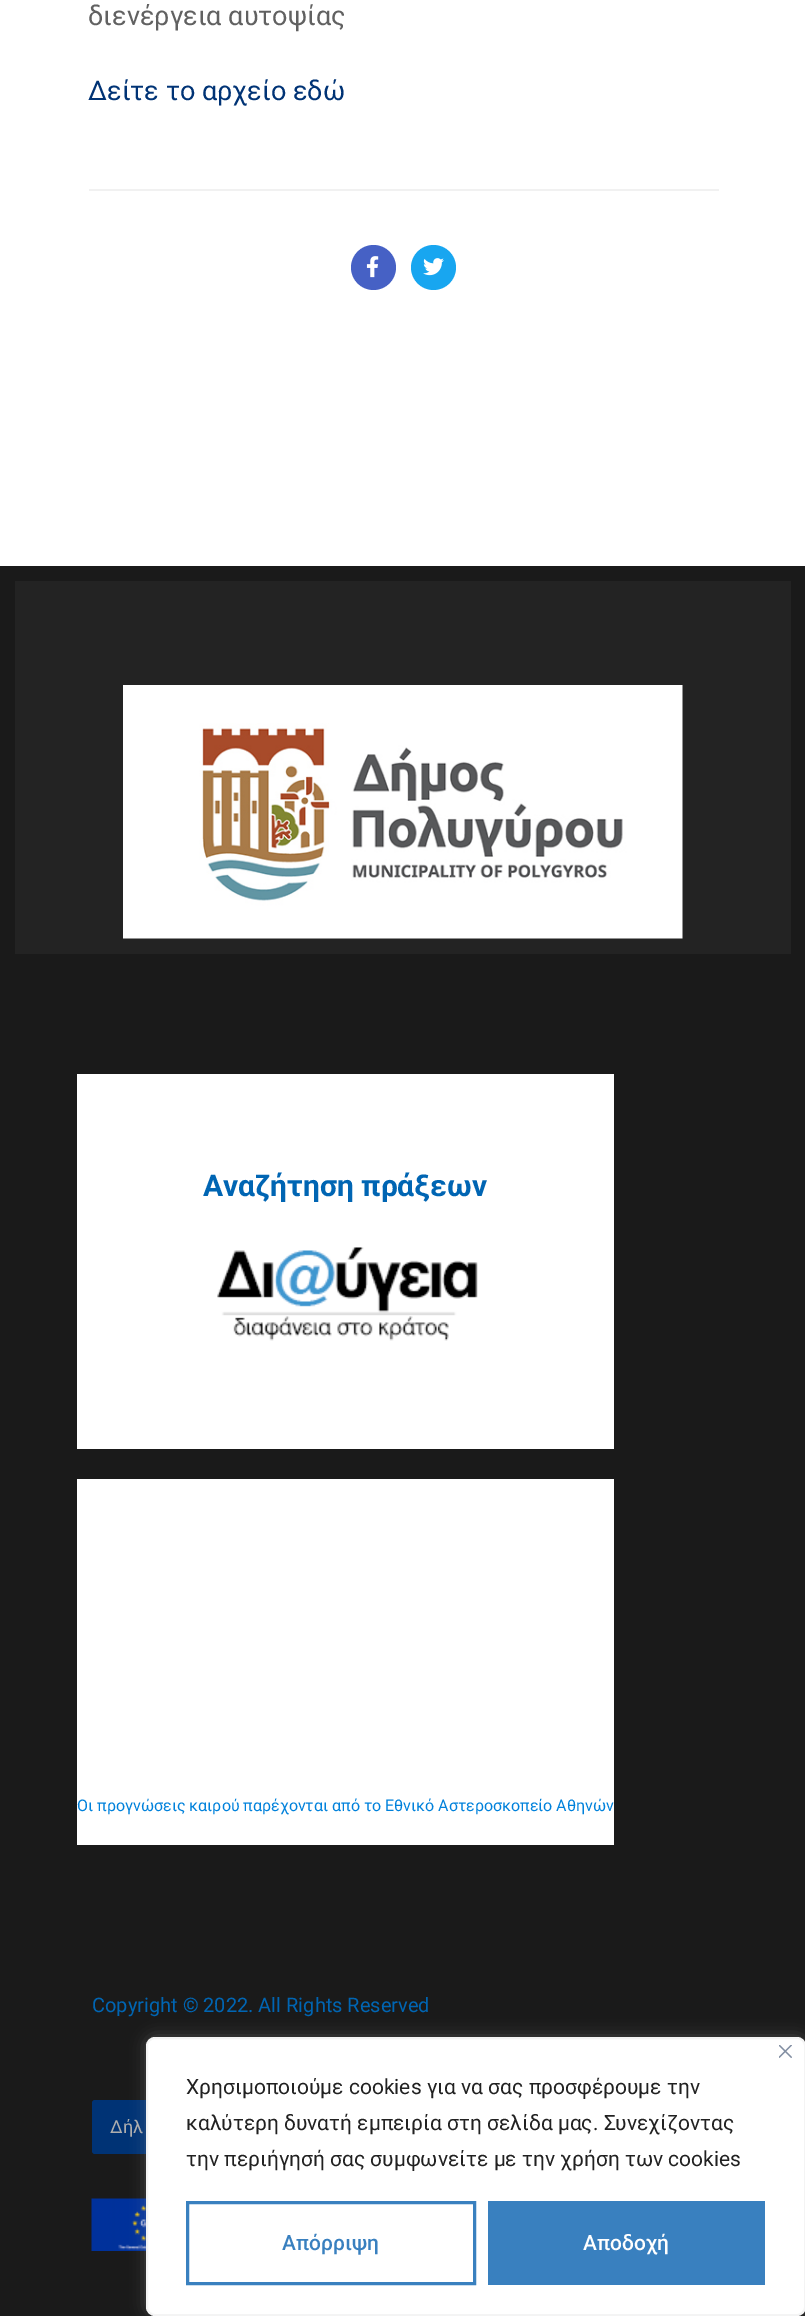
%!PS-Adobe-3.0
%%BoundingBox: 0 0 805 2316
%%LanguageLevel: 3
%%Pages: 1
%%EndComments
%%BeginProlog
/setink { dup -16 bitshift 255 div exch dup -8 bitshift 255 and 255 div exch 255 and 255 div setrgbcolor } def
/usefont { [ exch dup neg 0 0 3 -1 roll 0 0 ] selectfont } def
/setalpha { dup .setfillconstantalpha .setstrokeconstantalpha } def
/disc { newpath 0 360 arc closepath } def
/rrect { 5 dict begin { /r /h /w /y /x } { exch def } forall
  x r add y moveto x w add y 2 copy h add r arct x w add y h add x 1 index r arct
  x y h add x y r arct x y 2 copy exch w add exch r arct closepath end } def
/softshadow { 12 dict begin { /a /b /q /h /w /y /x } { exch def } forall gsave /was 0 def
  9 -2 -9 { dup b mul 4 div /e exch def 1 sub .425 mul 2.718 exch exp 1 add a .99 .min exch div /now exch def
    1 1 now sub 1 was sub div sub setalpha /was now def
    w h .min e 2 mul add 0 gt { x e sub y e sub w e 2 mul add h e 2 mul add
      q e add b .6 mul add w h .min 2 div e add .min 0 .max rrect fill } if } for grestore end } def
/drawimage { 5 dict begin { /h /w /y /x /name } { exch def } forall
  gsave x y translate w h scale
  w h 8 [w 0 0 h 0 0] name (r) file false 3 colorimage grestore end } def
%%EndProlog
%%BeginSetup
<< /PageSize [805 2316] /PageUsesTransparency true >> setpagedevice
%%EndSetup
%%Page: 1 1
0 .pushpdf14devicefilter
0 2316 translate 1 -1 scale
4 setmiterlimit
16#FFFFFF setink
0 0 805 2316 rectfill
/Roboto-Regular 27 usefont
16#616161 setink
88 25 moveto (διενέργεια αυτοψίας) show
16#003375 setink
88 100 moveto (Δείτε το αρχείο εδώ) show
16#F1F1F1 setink
89 189 630 2 rectfill
16#4661C5 setink
373.5 267.5 22.5 disc fill
(img1.raw) 366 256 13 22 drawimage
16#18A6F0 setink
433.5 267.5 22.5 disc fill
(img2.raw) 423 258 21 18 drawimage
16#1A1A1A setink
0 566 805 1750 rectfill
16#232323 setink
15 581 776 373 rectfill
(img3.raw) 123 685 560 254 drawimage
16#FFFFFF setink
77 1074 537 375 rectfill
/Roboto-Bold 30 usefont
16#0065B3 setink
203 1196 moveto (Αναζήτηση πράξεων) show
(img4.raw) 217 1247 261 94 drawimage
16#FFFFFF setink
77 1479 537 366 rectfill
/Roboto-Regular 16 usefont
16#0081DB setink
77 1811 moveto (Οι προγνώσεις καιρού παρέχονται από το Εθνικό Αστεροσκοπείο Αθηνών) show
/Roboto-Regular 20 usefont
16#0065B3 setink
92 2012 moveto (Copyright © 2022. All Rights Reserved) show
16#003375 setink
92 2100 256 54 3 rrect fill
/Roboto-Regular 18 usefont
16#AEAEAE setink
110 2133 moveto (Δήλ) show
(img5.raw) 91 2198 55 53 drawimage
16#ACABAB setink
146 2036 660 279 9 7.5 0.3 softshadow
16#FFFFFF setink
147 2038 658 277 8 rrect gsave fill grestore
16#F4F4F4 setink
2 setlinewidth
stroke
(img6.raw) 779 2045 13 13 drawimage
/Roboto-Regular 21 usefont
16#212121 setink
[
    [(Χρησιμοποιούμε cookies για να σας προσφέρουμε την) 186 2094]
    [(καλύτερη δυνατή εμπειρία στη σελίδα μας. Συνεχίζοντας) 186 2130]
    [(την περιήγησή σας συμφωνείτε με την χρήση των cookies) 186 2166]
] { aload pop moveto show } forall
16#3980BF setink
3 setlinewidth
187.5 2202.5 287 81 rectstroke
/Roboto-Medium 21 usefont
282 2250 moveto (Απόρριψη) show
488 2201 277 84 rectfill
16#FFFFFF setink
583 2250 moveto (Αποδοχή) show
.poppdf14devicefilter showpage
%%EOF
